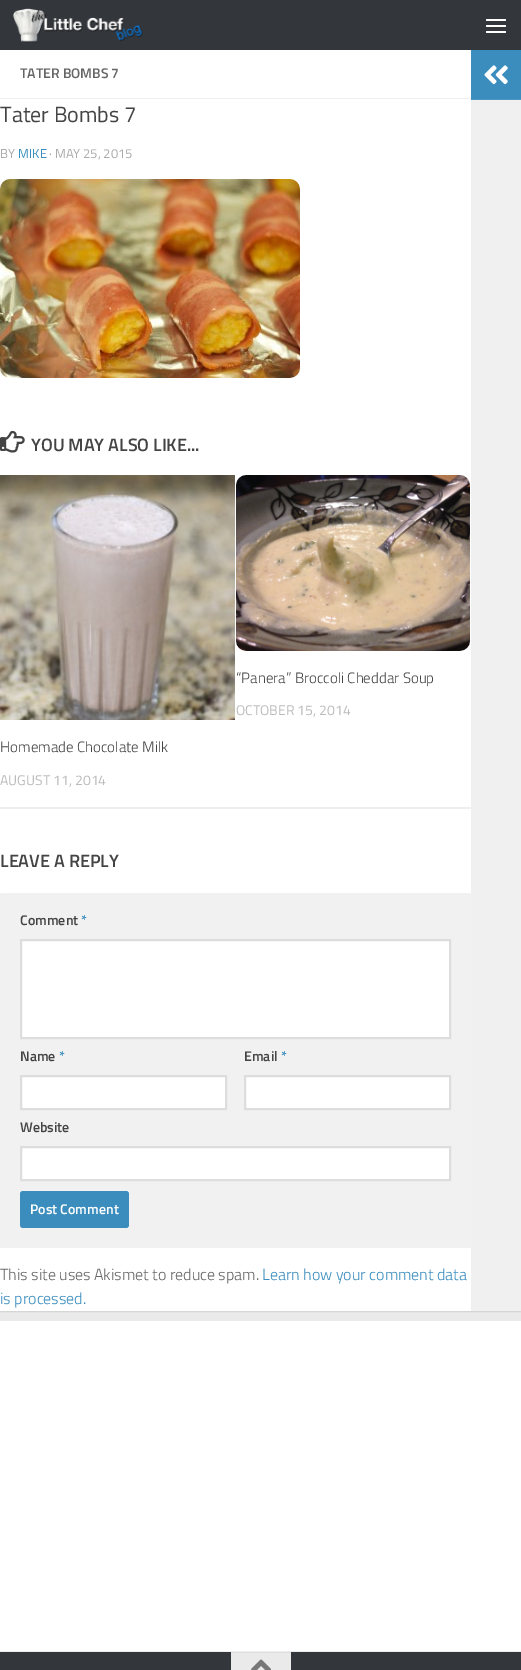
%!PS-Adobe-3.0
%%BoundingBox: 0 0 521 1670
%%LanguageLevel: 3
%%Pages: 1
%%EndComments
%%BeginProlog
/setink { dup -16 bitshift 255 div exch dup -8 bitshift 255 and 255 div exch 255 and 255 div setrgbcolor } def
/usefont { [ exch dup neg 0 0 3 -1 roll 0 0 ] selectfont } def
/setalpha { dup .setfillconstantalpha .setstrokeconstantalpha } def
/rrect { 5 dict begin { /r /h /w /y /x } { exch def } forall
  x r add y moveto x w add y 2 copy h add r arct x w add y h add x 1 index r arct
  x y h add x y r arct x y 2 copy exch w add exch r arct closepath end } def
/softshadow { 12 dict begin { /a /b /q /h /w /y /x } { exch def } forall gsave /was 0 def
  9 -2 -9 { dup b mul 4 div /e exch def 1 sub .425 mul 2.718 exch exp 1 add a .99 .min exch div /now exch def
    1 1 now sub 1 was sub div sub setalpha /was now def
    w h .min e 2 mul add 0 gt { x e sub y e sub w e 2 mul add h e 2 mul add
      q e add b .6 mul add w h .min 2 div e add .min 0 .max rrect fill } if } for grestore end } def
/drawimage { 5 dict begin { /h /w /y /x /name } { exch def } forall
  gsave x y translate w h scale
  w h 8 [w 0 0 h 0 0] name (r) file false 3 colorimage grestore end } def
%%EndProlog
%%BeginSetup
<< /PageSize [521 1670] /PageUsesTransparency true >> setpagedevice
%%EndSetup
%%Page: 1 1
0 .pushpdf14devicefilter
0 1670 translate 1 -1 scale
4 setmiterlimit
16#EAEAEA setink
0 0 521 1670 rectfill
16#000000 setink
0 51 521 1261 0 0.5 0.1 softshadow
16#33363B setink
0 0 521 50 rectfill
(img1.raw) 13 8 130 35 drawimage
16#FFFFFF setink
486 19 20 2 1 rrect fill
486 25 20 2 1 rrect fill
486 31 20 2 1 rrect fill
0 50 471 1261 rectfill
16#EEEEEE setink
0 98 471 1 rectfill
/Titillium-SemiBold 14 usefont
16#666666 setink
20 78 moveto (TATER BOMBS 7) show
/Titillium-Regular 22 usefont
16#444444 setink
0 122 moveto (Tater Bombs 7) show
/Titillium-Regular 13 usefont
16#AAAAAA setink
0 158 moveto (BY) show
16#3B8DBD setink
18 158 moveto (MIKE) show
16#AAAAAA setink
49 158 moveto (· MAY 25, 2015) show
(img2.raw) 0 179 300 199 drawimage
(img3.raw) 0 430 25 23 drawimage
/Titillium-SemiBold 18 usefont
16#444444 setink
31 451 moveto (YOU MAY ALSO LIKE...) show
16#EEEEEE setink
0 807 471 2 rectfill
(img4.raw) 236 475 234 176 drawimage
/Titillium-Light 15 usefont
16#444444 setink
236 683 moveto (“Panera” Broccoli Cheddar Soup) show
/Titillium-Regular 14 usefont
16#BBBBBB setink
236 715 moveto (OCTOBER 15, 2014) show
(img5.raw) 0 475 235 245 drawimage
/Titillium-Light 15 usefont
16#444444 setink
0 752 moveto (Homemade Chocolate Milk) show
/Titillium-Regular 14 usefont
16#BBBBBB setink
0 785 moveto (AUGUST 11, 2014) show
/Titillium-SemiBold 18 usefont
16#444444 setink
0 867 moveto (LEAVE A REPLY) show
16#F1F1F1 setink
0 893 471 355 2 rrect fill
/Titillium-SemiBold 14 usefont
16#444444 setink
20 925 moveto (Comment) show
16#3B8DBD setink
81 925 moveto (*) show
16#FFFFFF setink
21 940 moveto 450 940 lineto 450 1038 lineto 21 1038 lineto closepath gsave fill grestore
16#DDDDDD setink
2 setlinewidth
stroke
16#444444 setink
20 1061 moveto (Name) show
16#3B8DBD setink
59 1061 moveto (*) show
16#FFFFFF setink
21 1076 moveto 226 1076 lineto 226 1109 lineto 21 1109 lineto closepath gsave fill grestore
16#DDDDDD setink
stroke
16#444444 setink
244 1061 moveto (Email) show
16#3B8DBD setink
281 1061 moveto (*) show
16#FFFFFF setink
245 1076 moveto 450 1076 lineto 450 1109 lineto 245 1109 lineto closepath gsave fill grestore
16#DDDDDD setink
stroke
16#444444 setink
20 1132 moveto (Website) show
16#FFFFFF setink
21 1147 moveto 450 1147 lineto 450 1180 lineto 21 1180 lineto closepath gsave fill grestore
16#DDDDDD setink
stroke
16#3B8DBD setink
20 1191 109 37 3 rrect fill
16#FFFFFF setink
30 1214 moveto (Post Comment) show
/Titillium-Light 16 usefont
16#666666 setink
0 1280 moveto (This site uses Akismet to reduce spam.) show
16#3B8DBD setink
262 1280 moveto (Learn how your comment data) show
0 1304 moveto (is processed.) show
471 50 50 49 rectfill
16#4F98C4 setink
471 99 50 1 rectfill
(img6.raw) 484 65 24 20 drawimage
[
    [471 100 50 1211 16#F0F0F0]
    [0 1321 521 330 16#FFFFFF]
    [0 1651 521 1 16#EEEEEE]
    [0 1652 521 18 16#33363B]
    [231 1653 60 17 16#EAEAEA]
    [231 1652 60 1 16#DEDEDE]
] { aload pop setink rectfill } forall
(img7.raw) 251 1659 20 11 drawimage
.poppdf14devicefilter showpage
%%EOF
